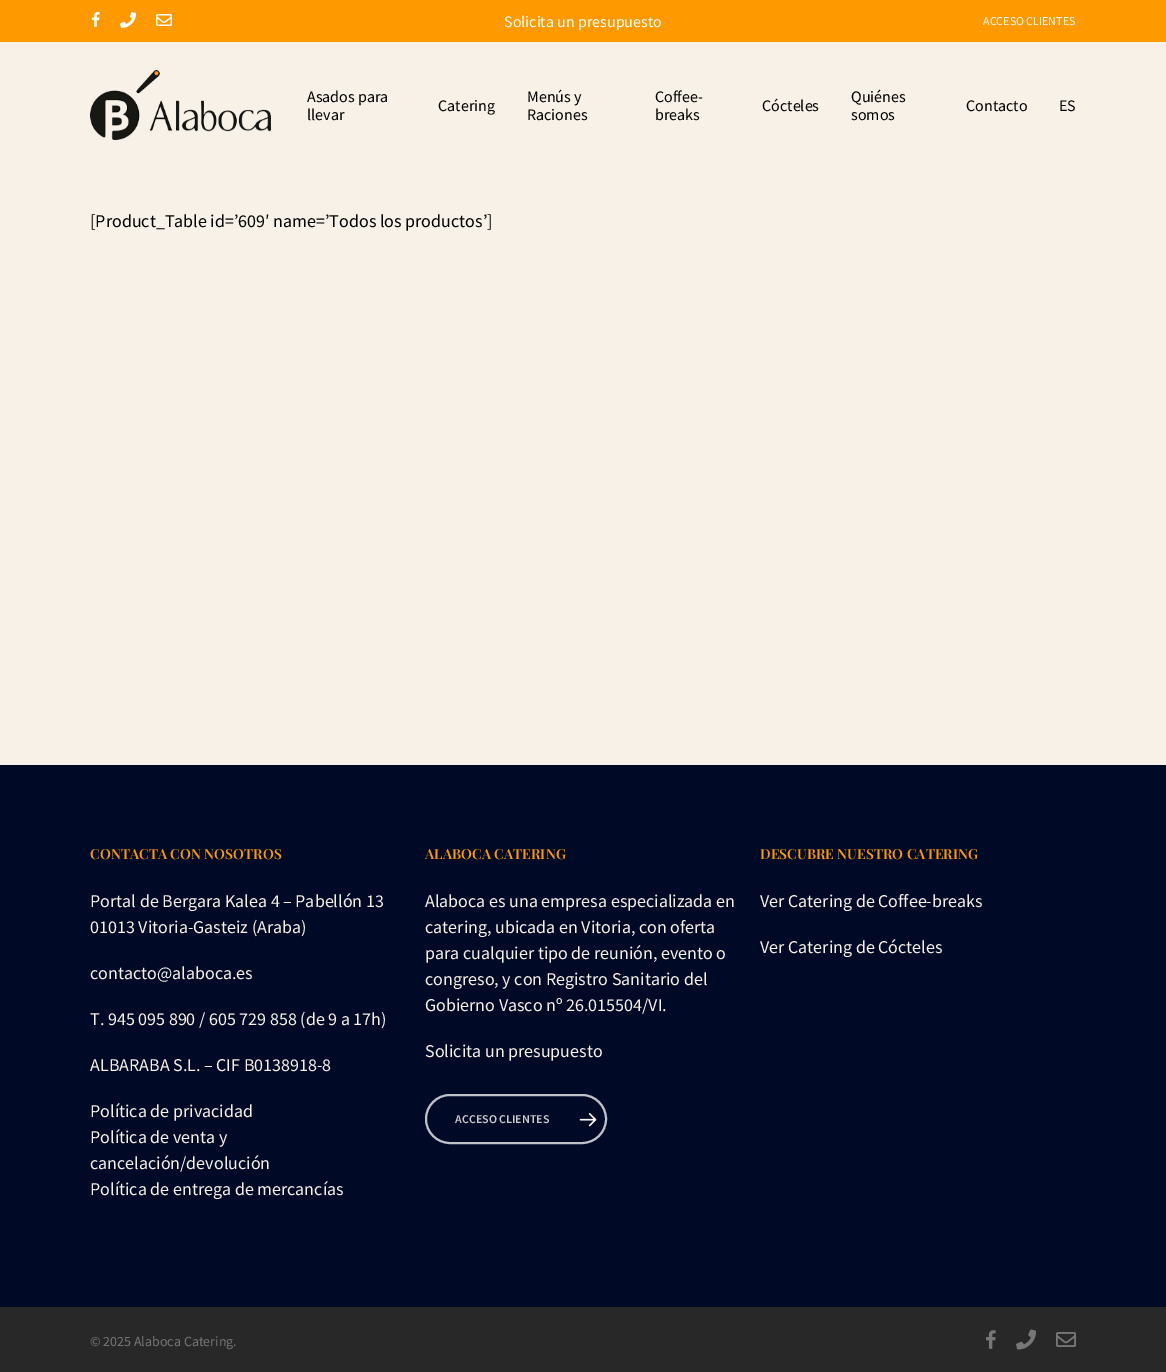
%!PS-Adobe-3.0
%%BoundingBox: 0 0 1166 1372
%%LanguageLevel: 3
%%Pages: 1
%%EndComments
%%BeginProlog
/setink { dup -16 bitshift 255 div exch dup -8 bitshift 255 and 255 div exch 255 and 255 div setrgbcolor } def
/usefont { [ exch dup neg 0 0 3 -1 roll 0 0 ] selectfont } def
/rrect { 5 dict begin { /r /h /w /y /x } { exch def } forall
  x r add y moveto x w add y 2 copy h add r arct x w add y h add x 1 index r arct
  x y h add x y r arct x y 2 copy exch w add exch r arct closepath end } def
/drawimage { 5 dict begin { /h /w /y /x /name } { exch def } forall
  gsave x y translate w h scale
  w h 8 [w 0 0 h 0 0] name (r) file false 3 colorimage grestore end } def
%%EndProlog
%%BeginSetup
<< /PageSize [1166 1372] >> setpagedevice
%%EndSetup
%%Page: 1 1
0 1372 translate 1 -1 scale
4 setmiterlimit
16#F7F1E8 setink
0 0 1166 1372 rectfill
16#FF9900 setink
0 0 1166 42 rectfill
(img1.raw) 91 12 9 15 drawimage
(img2.raw) 120 12 16 16 drawimage
(img3.raw) 156 14 16 12 drawimage
/SourceSansPro-Regular 16 usefont
16#FFFFFF setink
504 27 moveto (Solicita un presupuesto) show
/SourceSansPro-Regular 12 usefont
983 25 moveto (ACCESO CLIENTES) show
(img4.raw) 90 70 181 70 drawimage
/SourceSansPro-Regular 16 usefont
16#000000 setink
[
    [(Asados para) 307 102]
    [(llevar) 307 120]
    [(Catering) 438 111]
    [(Menús y) 527 102]
    [(Raciones) 527 120]
    [(Coffee-) 655 102]
    [(breaks) 655 120]
    [(Cócteles) 762 111]
    [(Quiénes) 851 102]
    [(somos) 851 120]
    [(Contacto) 966 111]
    [(ES) 1059 111]
] { aload pop moveto show } forall
/SourceSansPro-Regular 18 usefont
90 227 moveto ([Product_Table id=’609′ name=’Todos los productos’]) show
16#000926 setink
0 765 1166 542 rectfill
/PlayfairDisplay-SemiBold 14 usefont
16#FF9900 setink
90 859 moveto (CONTACTA CON NOSOTROS) show
/SourceSansPro-Regular 18 usefont
16#F7F1E8 setink
[
    [(Portal de Bergara Kalea 4 – Pabellón 13) 90 907]
    [(01013 Vitoria-Gasteiz \(Araba\)) 90 933]
    [(contacto@alaboca.es) 90 979]
    [(T. 945 095 890 / 605 729 858 \(de 9 a 17h\)) 90 1025]
    [(ALBARABA S.L. – CIF B0138918-8) 90 1071]
    [(Política de privacidad) 90 1117]
    [(Política de venta y) 90 1143]
    [(cancelación/devolución) 90 1169]
    [(Política de entrega de mercancías) 90 1195]
] { aload pop moveto show } forall
/PlayfairDisplay-SemiBold 14 usefont
16#FF9900 setink
425 859 moveto (ALABOCA CATERING) show
/SourceSansPro-Regular 18 usefont
16#F7F1E8 setink
[
    [(Alaboca es una empresa especializada en) 425 907]
    [(catering, ubicada en Vitoria, con oferta) 425 933]
    [(para cualquier tipo de reunión, evento o) 425 959]
    [(congreso, y con Registro Sanitario del) 425 985]
    [(Gobierno Vasco nº 26.015504/VI.) 425 1011]
    [(Solicita un presupuesto) 425 1057]
] { aload pop moveto show } forall
16#BFC2C9 setink
2 setlinewidth
426 1095 180 48 24 rrect stroke
/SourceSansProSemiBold-SemiBold 12 usefont
16#CCCCCC setink
455 1123 moveto (ACCESO CLIENTES) show
(img5.raw) 579 1113 18 14 drawimage
/PlayfairDisplay-SemiBold 14 usefont
16#FF9900 setink
760 859 moveto (DESCUBRE NUESTRO CATERING) show
/SourceSansPro-Regular 18 usefont
16#F7F1E8 setink
760 907 moveto (Ver Catering de Coffee-breaks) show
760 953 moveto (Ver Catering de Cócteles) show
16#282828 setink
0 1307 1166 65 rectfill
/SourceSansPro-Regular 14 usefont
16#777777 setink
90 1346 moveto (© 2025 Alaboca Catering.) show
(img6.raw) 986 1330 10 19 drawimage
(img7.raw) 1016 1329 20 21 drawimage
(img8.raw) 1056 1332 20 15 drawimage
showpage
%%EOF
